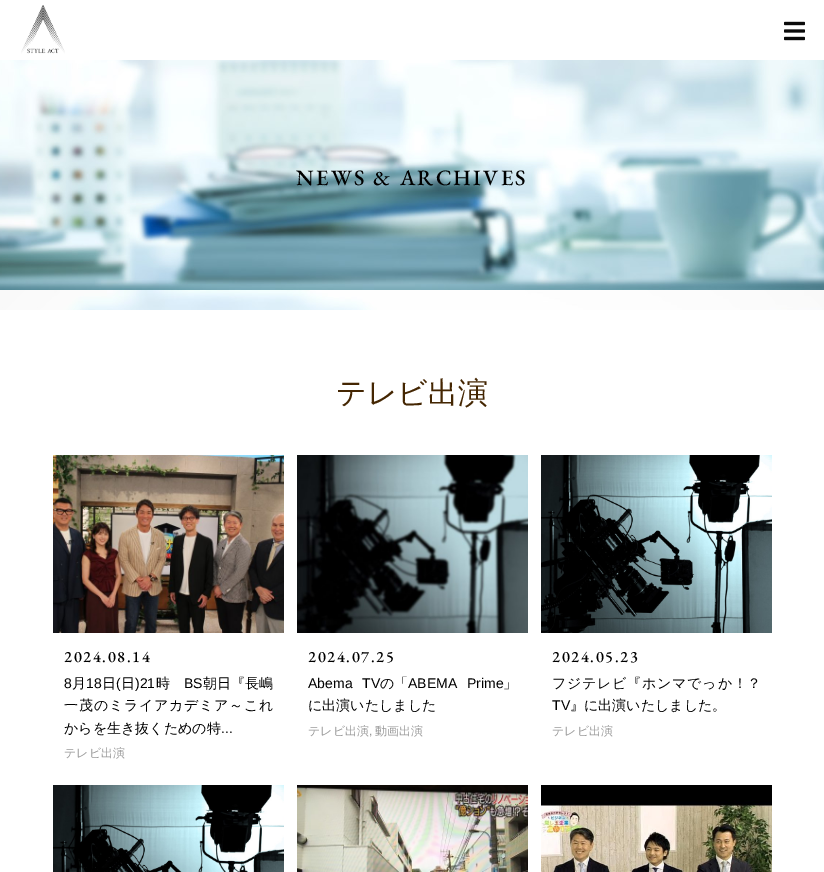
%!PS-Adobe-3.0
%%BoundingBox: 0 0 824 872
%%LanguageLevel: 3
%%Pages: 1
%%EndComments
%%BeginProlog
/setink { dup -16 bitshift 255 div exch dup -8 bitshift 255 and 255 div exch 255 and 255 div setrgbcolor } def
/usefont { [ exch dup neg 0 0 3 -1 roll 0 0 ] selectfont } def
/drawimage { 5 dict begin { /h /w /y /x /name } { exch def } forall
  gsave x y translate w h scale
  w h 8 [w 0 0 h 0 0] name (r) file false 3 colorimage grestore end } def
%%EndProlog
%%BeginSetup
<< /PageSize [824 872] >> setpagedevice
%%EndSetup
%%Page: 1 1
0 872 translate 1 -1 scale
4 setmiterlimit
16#FFFFFF setink
0 0 824 872 rectfill
(img1.raw) 21 5 44 49 drawimage
(img2.raw) 784 21 21 20 drawimage
(img3.raw) 0 60 824 250 drawimage
/EBGaramond-Medium 22 usefont
16#000000 setink
296 185 moveto 2.25 0 (NEWS & ARCHIVES) ashow
/WenQuanYiZenHei-Medium 30 usefont
16#442602 setink
336 403 moveto (テレビ出演) show
(img4.raw) 53 455 231 178 drawimage
/EBGaramond-Medium 16 usefont
16#000000 setink
64 662 moveto 1.6 0 (2024.08.14) ashow
/LiberationSans-Regular 14 usefont
64 688 moveto (8) show
/WenQuanYiZenHei-Medium 14 usefont
72 688 moveto (月) show
/LiberationSans-Regular 14 usefont
86 688 moveto (18) show
/WenQuanYiZenHei-Medium 14 usefont
102 688 moveto (日) show
/LiberationSans-Regular 14 usefont
116 688 moveto (\() show
/WenQuanYiZenHei-Medium 14 usefont
121 688 moveto (日) show
/LiberationSans-Regular 14 usefont
135 688 moveto (\)21) show
/WenQuanYiZenHei-Medium 14 usefont
156 688 moveto (時) show
/LiberationSans-Regular 14 usefont
184 688 moveto (BS) show
/WenQuanYiZenHei-Medium 14 usefont
203 688 moveto (朝日『長嶋) show
64 710 moveto 0.75 0 (一茂のミライアカデミア～これ) ashow
64 733 moveto (からを生き抜くための特) show
/LiberationSans-Regular 14 usefont
221 733 moveto (...) show
/WenQuanYiZenHei-Medium 12 usefont
16#999999 setink
64 757 moveto (テレビ出演) show
(img5.raw) 297 455 231 178 drawimage
/EBGaramond-Medium 16 usefont
16#000000 setink
308 662 moveto 1.6 0 (2024.07.25) ashow
/LiberationSans-Regular 14 usefont
308 688 moveto 6 0 32 (Abema TV) widthshow
/WenQuanYiZenHei-Medium 14 usefont
380 688 moveto (の「) show
/LiberationSans-Regular 14 usefont
408 688 moveto 6 0 32 (ABEMA Prime) widthshow
/WenQuanYiZenHei-Medium 14 usefont
503 688 moveto (」) show
308 710 moveto (に出演いたしました) show
/WenQuanYiZenHei-Medium 12 usefont
16#999999 setink
308 735 moveto (テレビ出演) show
/LiberationSans-Regular 12 usefont
369 735 moveto (,) show
/WenQuanYiZenHei-Medium 12 usefont
375 735 moveto (動画出演) show
(img6.raw) 541 455 231 178 drawimage
/EBGaramond-Medium 16 usefont
16#000000 setink
552 662 moveto 1.6 0 (2024.05.23) ashow
/WenQuanYiZenHei-Medium 14 usefont
552 688 moveto 0.75 0 (フジテレビ『ホンマでっか！？) ashow
/LiberationSans-Regular 14 usefont
552 710 moveto (TV) show
/WenQuanYiZenHei-Medium 14 usefont
570 710 moveto (』に出演いたしました。) show
/WenQuanYiZenHei-Medium 12 usefont
16#999999 setink
552 735 moveto (テレビ出演) show
(img7.raw) 53 785 231 87 drawimage
(img8.raw) 297 785 231 87 drawimage
(img9.raw) 541 785 231 87 drawimage
showpage
%%EOF
